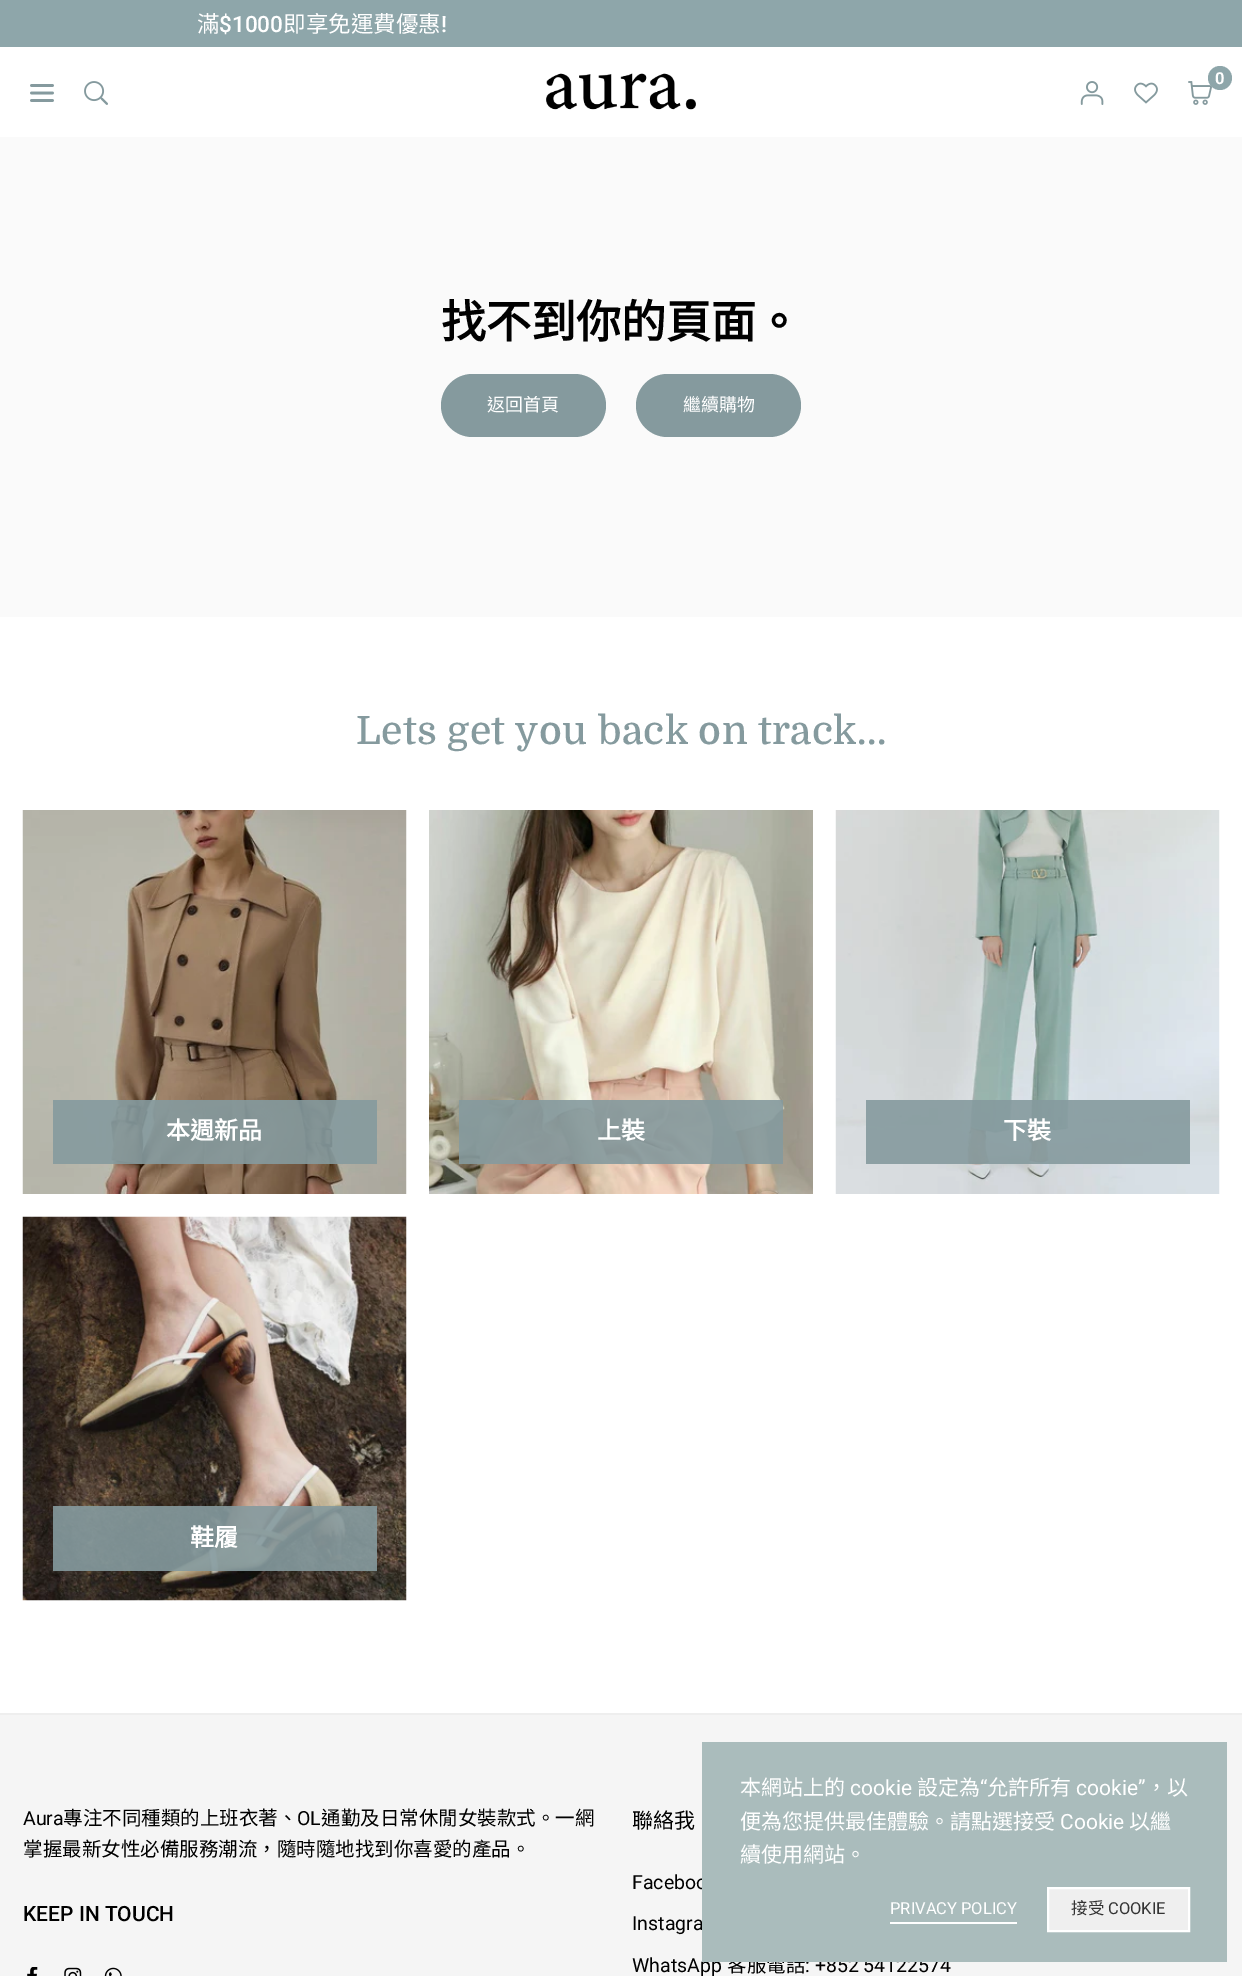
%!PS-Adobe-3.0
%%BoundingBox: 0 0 1242 1976
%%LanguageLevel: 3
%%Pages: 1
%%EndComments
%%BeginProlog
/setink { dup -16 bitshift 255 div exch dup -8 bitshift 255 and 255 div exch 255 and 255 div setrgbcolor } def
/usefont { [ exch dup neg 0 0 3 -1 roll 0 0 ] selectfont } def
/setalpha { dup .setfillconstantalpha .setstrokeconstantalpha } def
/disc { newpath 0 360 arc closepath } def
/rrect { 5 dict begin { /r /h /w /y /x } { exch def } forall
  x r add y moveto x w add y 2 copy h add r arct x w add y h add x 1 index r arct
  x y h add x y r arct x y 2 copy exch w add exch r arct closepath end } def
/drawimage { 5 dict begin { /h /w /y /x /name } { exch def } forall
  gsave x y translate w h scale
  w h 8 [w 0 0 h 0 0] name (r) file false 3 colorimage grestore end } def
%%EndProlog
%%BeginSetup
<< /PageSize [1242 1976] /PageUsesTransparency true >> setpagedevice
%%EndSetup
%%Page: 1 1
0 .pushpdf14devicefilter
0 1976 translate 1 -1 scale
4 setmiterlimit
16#FFFFFF setink
0 0 1242 1976 rectfill
16#8EA6AA setink
0 0 1242 47 rectfill
/NotoSansCJKTC-Regular 22.5 usefont
16#FFFFFF setink
197 32 moveto (滿) show
/Roboto-Medium 22.5 usefont
219 32 moveto ($1000) show
/NotoSansCJKTC-Regular 22.5 usefont
283 32 moveto (即享免運費優惠) show
/Roboto-Medium 22.5 usefont
441 32 moveto (!) show
(img1.raw) 30 84 24 18 drawimage
(img2.raw) 84 81 24 24 drawimage
(img3.raw) 546 73 150 37 drawimage
(img4.raw) 1188 81 24 24 drawimage
16#8EA6AA setink
1220 78 12 disc fill
/Roboto-Bold 16.5 usefont
16#FFFFFF setink
1215 84 moveto (0) show
(img5.raw) 1080 81 24 24 drawimage
(img6.raw) 1134 82 24 22 drawimage
16#FAFAFA setink
0 137 1242 480 rectfill
/NotoSansCJKTC-Bold 45 usefont
16#000000 setink
441 338 moveto (找不到你的頁面。) show
16#859A9E setink
441 374 165 63 31.5 rrect fill
/NotoSansCJKTC-Regular 18 usefont
16#FFFFFF setink
487 411 moveto (返回首頁) show
16#859A9E setink
636 374 165 63 31.5 rrect fill
16#FFFFFF setink
683 411 moveto (繼續購物) show
/Domine-Medium 39 usefont
16#859A9E setink
356 744 moveto 0.4 0 (Lets get you back on track...) ashow
(img7.raw) 22 810 385 384 drawimage
0.9 setalpha
53 1100 324 64 rectfill
/NotoSansCJKTC-Bold 24 usefont
1 setalpha
16#FFFFFF setink
166 1139 moveto (本週新品) show
(img8.raw) 429 810 384 384 drawimage
0.9 setalpha
16#859A9E setink
459 1100 324 64 rectfill
1 setalpha
16#FFFFFF setink
597 1139 moveto (上裝) show
(img9.raw) 835 810 385 384 drawimage
0.9 setalpha
16#859A9E setink
866 1100 324 64 rectfill
1 setalpha
16#FFFFFF setink
1003 1139 moveto (下裝) show
(img10.raw) 22 1216 385 385 drawimage
0.9 setalpha
16#859A9E setink
53 1506 324 65 rectfill
1 setalpha
16#FFFFFF setink
190 1546 moveto (鞋履) show
16#F5F5F5 setink
0 1715 1242 261 rectfill
16#EEEEEE setink
0 1713 1242 2 rectfill
/Roboto-Regular 19.5 usefont
16#000000 setink
23 1825 moveto (Aura) show
/NotoSansCJKTC-Regular 19.5 usefont
63 1825 moveto (專注不同種類的上班衣著、) show
/Roboto-Regular 19.5 usefont
297 1825 moveto (OL) show
/NotoSansCJKTC-Regular 19.5 usefont
321 1825 moveto (通勤及日常休閒女裝款式。一網) show
23 1856 moveto (掌握最新女性必備服務潮流，隨時隨地找到你喜愛的產品。) show
/Roboto-Medium 21 usefont
23 1921 moveto (KEEP IN TOUCH) show
(img11.raw) 27 1967 11 9 drawimage
(img12.raw) 64 1967 18 9 drawimage
(img13.raw) 104 1967 18 9 drawimage
/NotoSansCJKTC-Regular 21 usefont
632 1828 moveto (聯絡我) show
/Roboto-Regular 19.5 usefont
[
    [(Faceboo) 632 1889]
    [(Instagra) 632 1930]
    [(WhatsApp) 632 1972]
] { aload pop moveto show } forall
/NotoSansCJKTC-Regular 19.5 usefont
727 1972 moveto (客服電話) show
/Roboto-Regular 19.5 usefont
805 1972 moveto (: +852 54122574) show
16#AABCBC setink
702 1742 525 220 rectfill
/NotoSansCJKTC-Regular 21 usefont
16#FFFFFF setink
740 1795 moveto (本網站上的) show
/Roboto-Regular 21 usefont
850 1795 moveto (cookie) show
/NotoSansCJKTC-Regular 21 usefont
917 1795 moveto (設定為) show
/Roboto-Regular 21 usefont
980 1795 moveto (“) show
/NotoSansCJKTC-Regular 21 usefont
987 1795 moveto (允許所有) show
/Roboto-Regular 21 usefont
1076 1795 moveto (cookie”) show
/NotoSansCJKTC-Regular 21 usefont
1146 1795 moveto (，以) show
740 1829 moveto (便為您提供最佳體驗。請點選接受) show
/Roboto-Regular 21 usefont
1060 1829 moveto (Cookie) show
/NotoSansCJKTC-Regular 21 usefont
1129 1829 moveto (以繼) show
740 1862 moveto (續使用網站。) show
890 1922 127 2 rectfill
/Roboto-Regular 16.5 usefont
890 1914 moveto (PRIVACY POLICY) show
16#EFEFEF setink
1048 1888 moveto 1189 1888 lineto 1189 1931 lineto 1048 1931 lineto closepath gsave fill grestore
16#FFFFFF setink
2 setlinewidth
stroke
/NotoSansCJKTC-Regular 16.5 usefont
16#333333 setink
1071 1914 moveto (接受) show
/Roboto-Regular 16.5 usefont
1108 1914 moveto (COOKIE) show
.poppdf14devicefilter showpage
%%EOF
